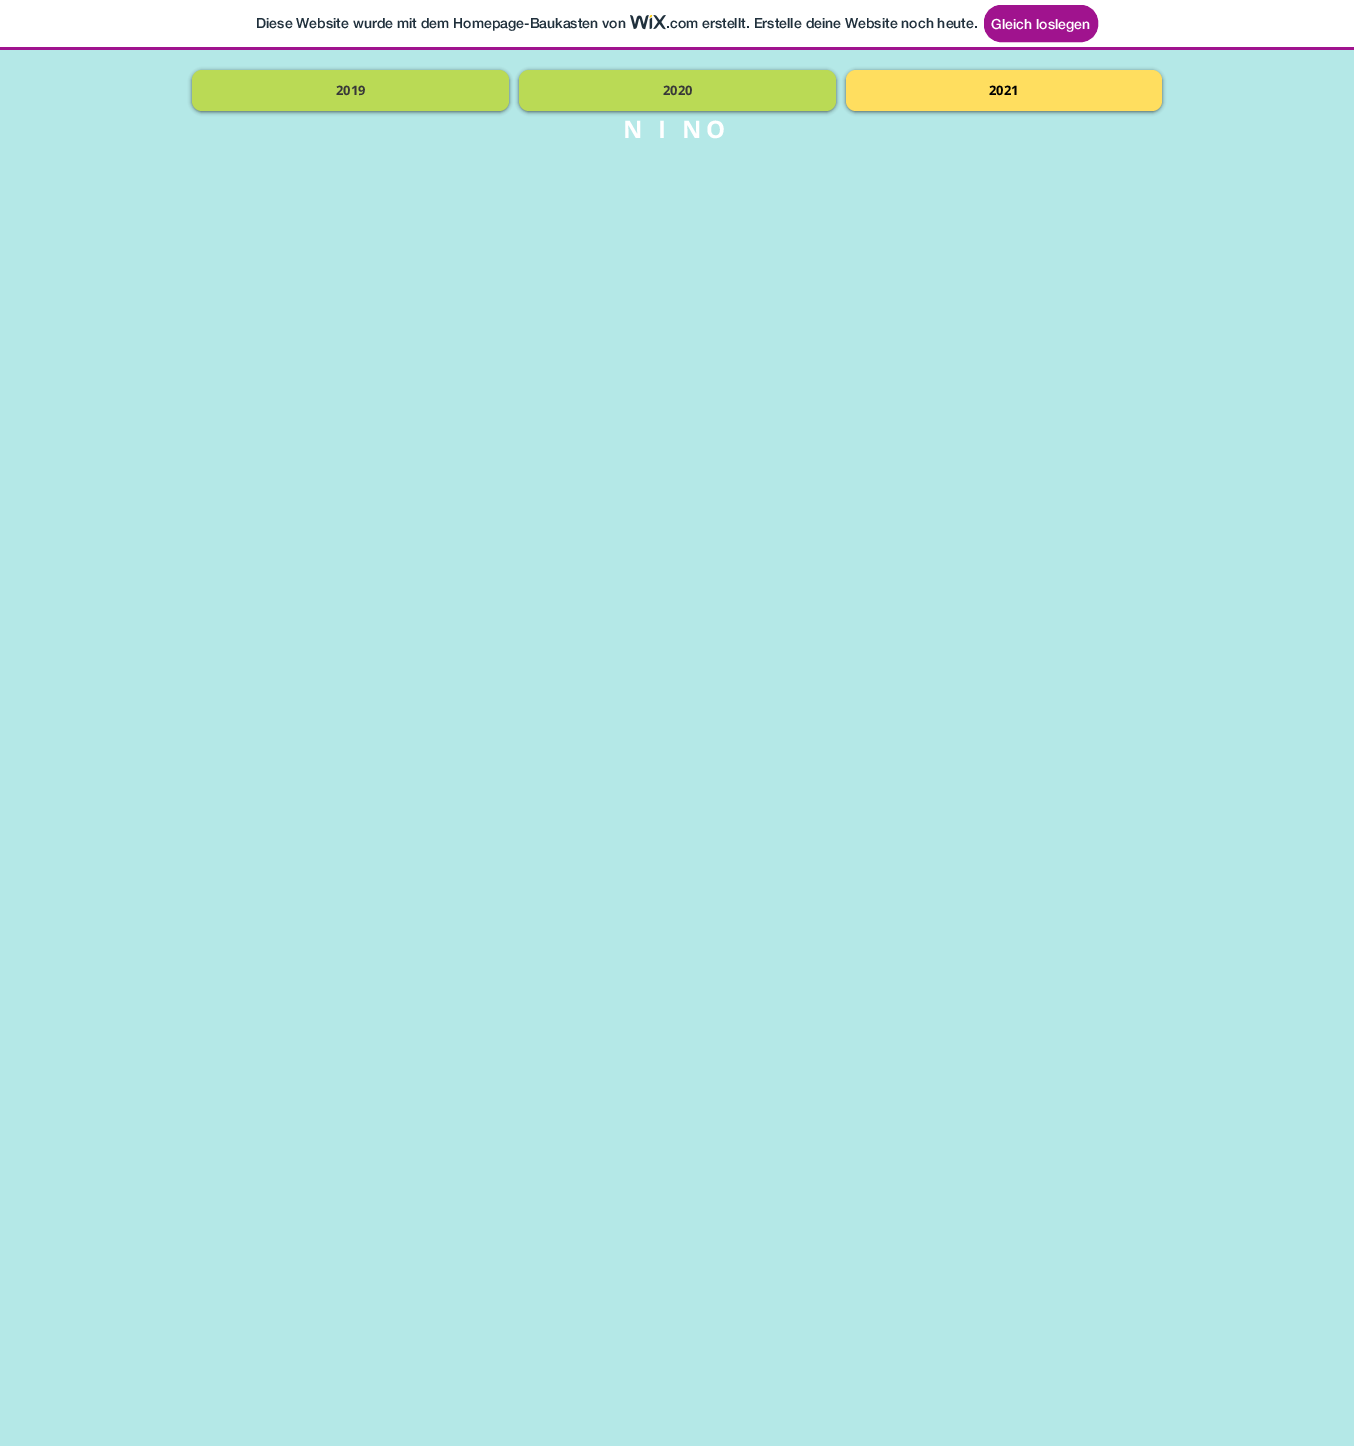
%!PS-Adobe-3.0
%%BoundingBox: 0 0 1354 1446
%%LanguageLevel: 3
%%Pages: 1
%%EndComments
%%BeginProlog
/setink { dup -16 bitshift 255 div exch dup -8 bitshift 255 and 255 div exch 255 and 255 div setrgbcolor } def
/usefont { [ exch dup neg 0 0 3 -1 roll 0 0 ] selectfont } def
/setalpha { dup .setfillconstantalpha .setstrokeconstantalpha } def
/rrect { 5 dict begin { /r /h /w /y /x } { exch def } forall
  x r add y moveto x w add y 2 copy h add r arct x w add y h add x 1 index r arct
  x y h add x y r arct x y 2 copy exch w add exch r arct closepath end } def
/softshadow { 12 dict begin { /a /b /q /h /w /y /x } { exch def } forall gsave /was 0 def
  9 -2 -9 { dup b mul 4 div /e exch def 1 sub .425 mul 2.718 exch exp 1 add a .99 .min exch div /now exch def
    1 1 now sub 1 was sub div sub setalpha /was now def
    w h .min e 2 mul add 0 gt { x e sub y e sub w e 2 mul add h e 2 mul add
      q e add b .6 mul add w h .min 2 div e add .min 0 .max rrect fill } if } for grestore end } def
/drawimage { 5 dict begin { /h /w /y /x /name } { exch def } forall
  gsave x y translate w h scale
  w h 8 [w 0 0 h 0 0] name (r) file false 3 colorimage grestore end } def
%%EndProlog
%%BeginSetup
<< /PageSize [1354 1446] /PageUsesTransparency true >> setpagedevice
%%EndSetup
%%Page: 1 1
0 .pushpdf14devicefilter
0 1446 translate 1 -1 scale
4 setmiterlimit
16#FFFFFF setink
0 0 1354 1446 rectfill
16#A0138E setink
0 47 1354 3 rectfill
/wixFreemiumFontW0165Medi-Medium 14 usefont
16#20303C setink
256 28 moveto (Diese Website wurde mit dem Homepage-Baukasten von) show
(img1.raw) 630 15 36 15 drawimage
666 28 moveto (.com erstellt. Erstelle deine Website noch heute.) show
16#A0138E setink
984.5 5.5 113 36 16.5 rrect gsave fill grestore
stroke
16#FFFFFF setink
991 29 moveto (Gleich loslegen) show
16#B4E8E7 setink
0 50 1354 1396 rectfill
16#000000 setink
192 71 317 41 10 2 0.6 softshadow
16#BADA55 setink
192 70 317 41 10 rrect fill
/OpenSans-Bold 13 usefont
16#383838 setink
336 95 moveto (2019) show
16#000000 setink
519 71 317 41 10 2 0.6 softshadow
16#BADA55 setink
519 70 317 41 10 rrect fill
16#383838 setink
663 95 moveto (2020) show
16#000000 setink
846 71 316 41 10 2 0.6 softshadow
16#FFDE5F setink
846 70 316 41 10 rrect fill
16#000000 setink
989 95 moveto (2021) show
/OpenSans-Bold 24 usefont
16#FFFFFF setink
623 138 moveto 4.75 0 (N I NO) ashow
.poppdf14devicefilter showpage
%%EOF
